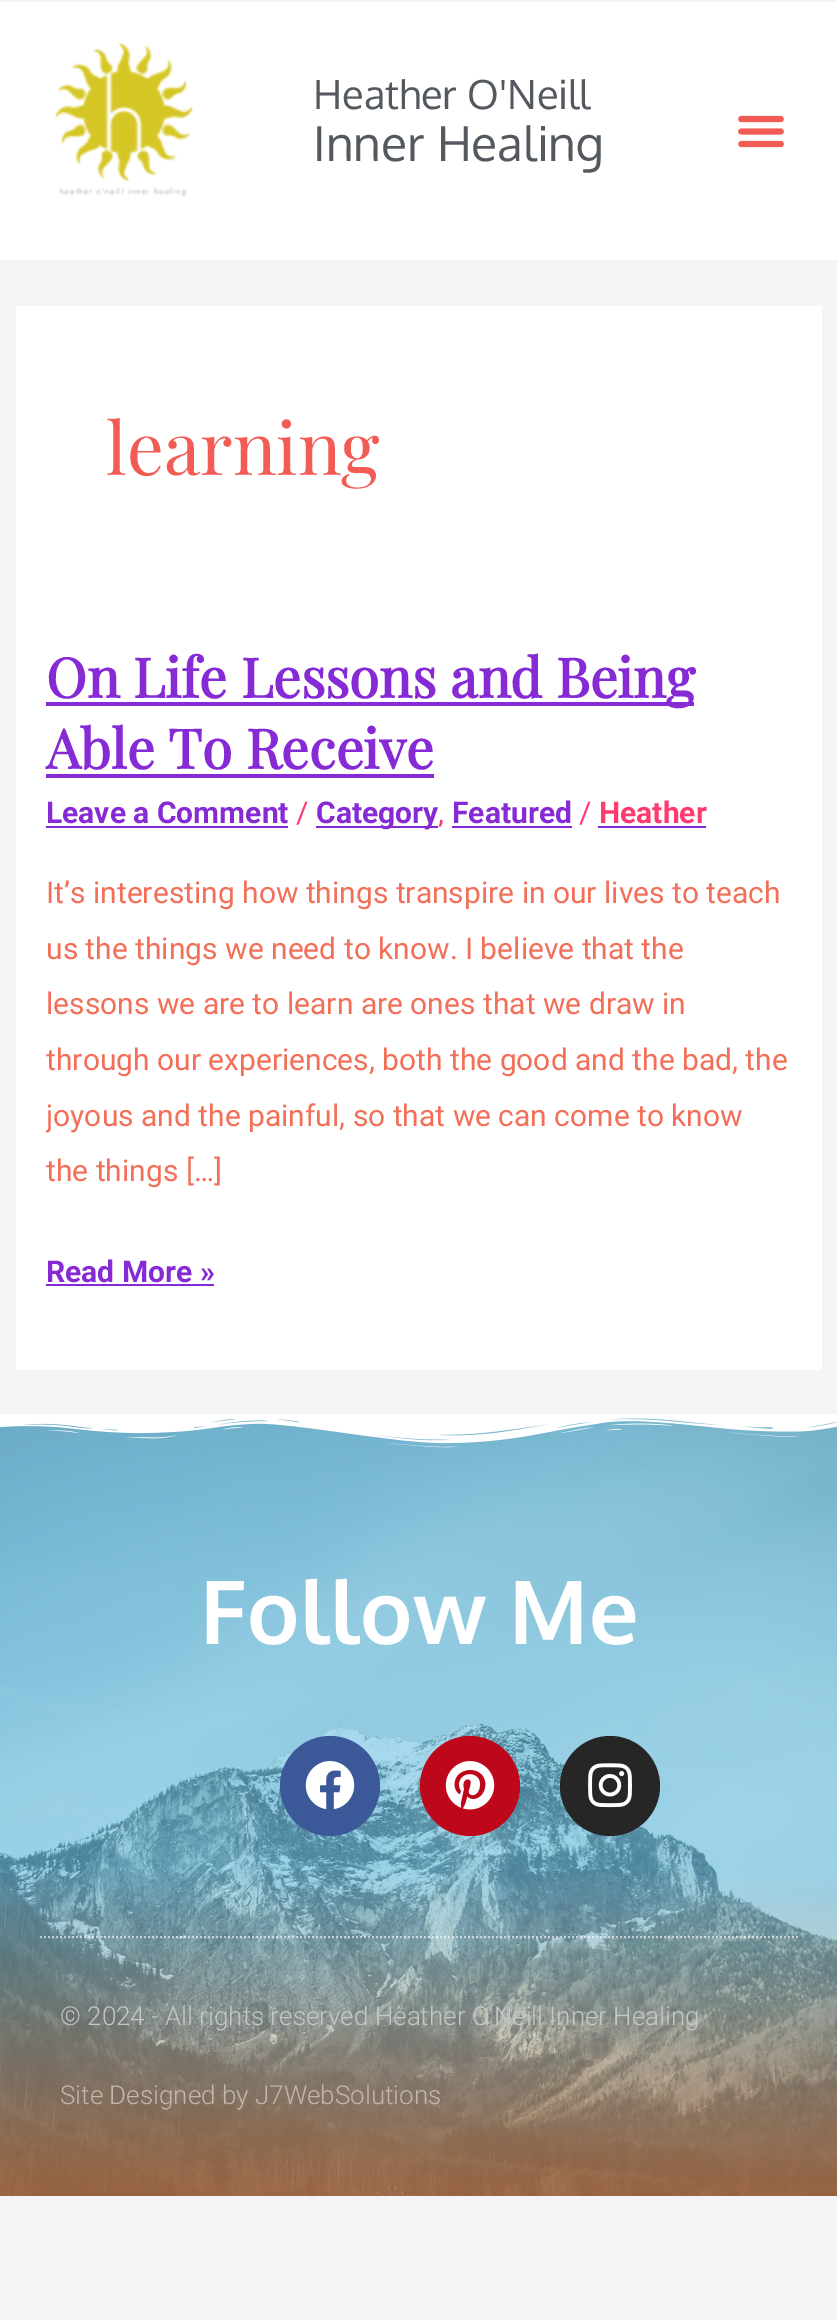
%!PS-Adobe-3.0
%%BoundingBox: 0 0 837 2320
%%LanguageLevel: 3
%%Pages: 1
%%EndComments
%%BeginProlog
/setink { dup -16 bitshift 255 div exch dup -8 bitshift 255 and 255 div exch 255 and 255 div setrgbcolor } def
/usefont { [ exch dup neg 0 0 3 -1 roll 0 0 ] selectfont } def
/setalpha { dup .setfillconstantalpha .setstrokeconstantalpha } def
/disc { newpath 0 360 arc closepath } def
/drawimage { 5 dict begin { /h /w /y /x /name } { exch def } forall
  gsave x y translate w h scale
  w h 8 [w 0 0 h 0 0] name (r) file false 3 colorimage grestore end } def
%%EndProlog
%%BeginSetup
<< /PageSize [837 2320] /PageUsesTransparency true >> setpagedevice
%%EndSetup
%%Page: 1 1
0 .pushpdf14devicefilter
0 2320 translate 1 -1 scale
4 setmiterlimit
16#F5F5F5 setink
0 0 837 2320 rectfill
16#FFFFFF setink
0 2 837 258 rectfill
(img1.raw) 54 42 140 155 drawimage
/Oxygen-Regular 40 usefont
16#54595F setink
313 109 moveto (Heather O'Neill) show
/Oxygen-Regular 48 usefont
313 161 moveto (Inner Healing) show
(img2.raw) 738 115 46 33 drawimage
16#FFFFFF setink
16 306 806 1064 rectfill
/PlayfairDisplay-Regular 73 usefont
16#F25C54 setink
106 475 moveto (learning) show
16#862AD5 setink
46 702 648 4 rectfill
/PlayfairDisplay-Bold 54.75 usefont
46 698 moveto (On Life Lessons and Being) show
46 769 moveto (Able To Receive) show
46 774 388 4 rectfill
/Roboto-Bold 30 usefont
46 823 moveto (Leave a Comment) show
46 826 242 2 rectfill
/Roboto-Regular 30 usefont
16#FF3A6F setink
296 823 moveto (/) show
16#862AD5 setink
316 826 122 2 rectfill
/Roboto-Bold 30 usefont
316 823 moveto (Category) show
/Roboto-Regular 30 usefont
16#FF3A6F setink
438 823 moveto (,) show
16#862AD5 setink
452 826 120 2 rectfill
/Roboto-Bold 30 usefont
452 823 moveto (Featured) show
/Roboto-Regular 30 usefont
16#FF3A6F setink
579 823 moveto (/) show
/Roboto-Bold 30 usefont
599 823 moveto (Heather) show
16#862AD5 setink
598 826 108 2 rectfill
/Roboto-Regular 30 usefont
16#F27059 setink
[
    [(It’s interesting how things transpire in our lives to teach) 46 903]
    [(us the things we need to know. I believe that the) 46 959]
    [(lessons we are to learn are ones that we draw in) 46 1014]
    [(through our experiences, both the good and the bad, the) 46 1070]
] { aload pop moveto show } forall
gsave
46 640 746 686 rectclip
46 1126 moveto (joyous and the painful, so that we can come to know) show
grestore
46 1181 moveto (the things […]) show
/Roboto-Bold 30 usefont
16#862AD5 setink
46 1282 moveto (Read More ») show
46 1284 168 2 rectfill
(img3.raw) 0 1418 837 778 drawimage
(img4.raw) 0 1414 837 34 drawimage
/Oxygen-Bold 88 usefont
16#FFFFFF setink
200 1644 moveto (Follow Me) show
16#3B5998 setink
330 1786 50 disc fill
(img5.raw) 305 1761 50 49 drawimage
16#BD081C setink
470 1786 50 disc fill
(img6.raw) 445 1761 50 49 drawimage
16#262626 setink
610 1786 50 disc fill
(img7.raw) 588 1763 44 45 drawimage
0.59 setalpha
16#FFFFFF setink
2 setlinewidth
[2 2] 0 setdash
40 1937 moveto 798 1937 lineto stroke
/Roboto-Light 26 usefont
1 setalpha
16#C4C7C5 setink
60 2025 moveto (© 2024 - All rights reserved Heather O'Neill Inner Healing) show
16#C1B7AF setink
60 2104 moveto (Site Designed by) show
255 2104 moveto (J7WebSolutions) show
.poppdf14devicefilter showpage
%%EOF
